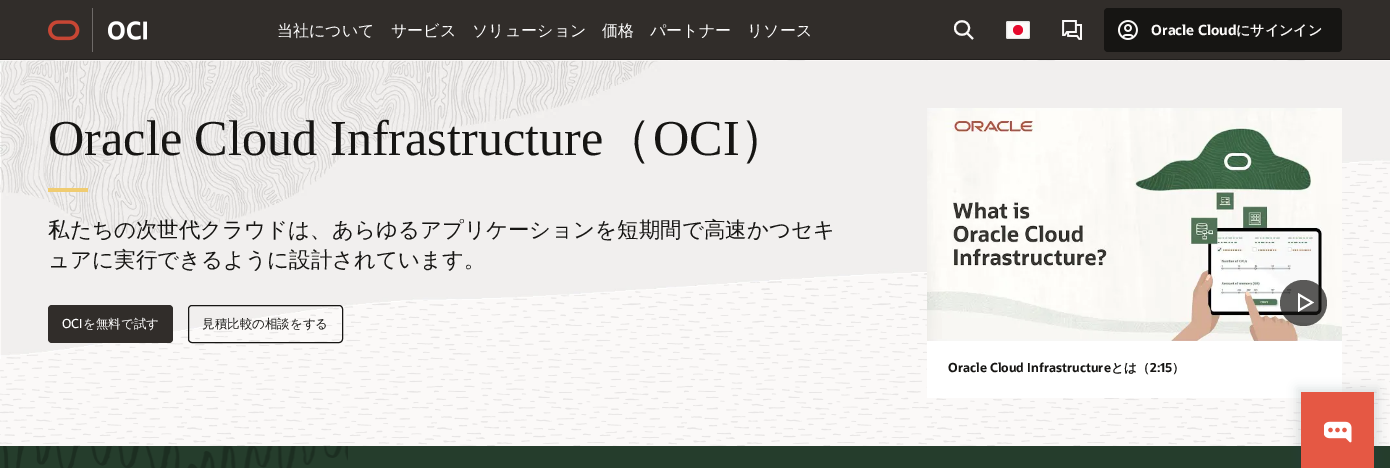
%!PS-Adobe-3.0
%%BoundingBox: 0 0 1390 468
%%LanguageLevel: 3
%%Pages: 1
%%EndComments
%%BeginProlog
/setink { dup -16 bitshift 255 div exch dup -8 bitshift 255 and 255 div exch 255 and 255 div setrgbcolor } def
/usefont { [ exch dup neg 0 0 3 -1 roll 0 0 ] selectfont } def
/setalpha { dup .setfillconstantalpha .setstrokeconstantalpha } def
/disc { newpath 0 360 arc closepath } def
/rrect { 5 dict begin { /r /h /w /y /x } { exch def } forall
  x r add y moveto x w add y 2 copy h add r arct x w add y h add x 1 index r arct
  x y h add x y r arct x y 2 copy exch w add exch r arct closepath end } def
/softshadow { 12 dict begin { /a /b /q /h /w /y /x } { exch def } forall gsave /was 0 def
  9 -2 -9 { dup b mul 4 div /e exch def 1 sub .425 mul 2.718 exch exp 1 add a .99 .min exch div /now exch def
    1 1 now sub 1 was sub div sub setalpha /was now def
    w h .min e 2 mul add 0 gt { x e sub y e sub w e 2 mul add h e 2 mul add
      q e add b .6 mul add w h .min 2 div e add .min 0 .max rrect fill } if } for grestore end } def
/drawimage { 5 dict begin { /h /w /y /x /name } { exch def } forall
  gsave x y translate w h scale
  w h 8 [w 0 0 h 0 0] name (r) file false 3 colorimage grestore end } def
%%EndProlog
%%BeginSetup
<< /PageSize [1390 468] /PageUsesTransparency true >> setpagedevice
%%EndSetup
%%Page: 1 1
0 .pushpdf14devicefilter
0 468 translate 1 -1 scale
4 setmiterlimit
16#253D2C setink
0 0 1390 468 rectfill
16#312D2A setink
0 0 1390 59 rectfill
(img1.raw) 48 20 32 21 drawimage
16#6E6A68 setink
92 8 1 44 rectfill
(img2.raw) 108 21 39 19 drawimage
/WenQuanYiZenHei-Medium 16 usefont
16#FFFFFF setink
[
    [(当社について) 277 36]
    [(サービス) 391 36]
    [(ソリューション) 472 36]
    [(価格) 602 36]
    [(パートナー) 650 36]
    [(リソース) 747 36]
] { aload pop moveto show } forall
16#FBF9F8 setink
2 setlinewidth
967 33 moveto 973 39 lineto 969 28 moveto 969 37 955 37 955 28 curveto 955 19 969 19 969 28 curveto closepath stroke
16#FCFBFA setink
1006 21 24 18 2 rrect fill
16#E70A2D setink
1018 30 5 disc fill
0.1 setalpha
16#100F0E setink
1 setlinewidth
1006.5 21.5 23 17 2 rrect stroke
1 setalpha
(img3.raw) 1062 20 20 20 drawimage
16#161513 setink
1104 8 238 44 4 rrect fill
(img4.raw) 1118 20 20 20 drawimage
/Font-Bold 14 usefont
16#FBF9F8 setink
1151 35 moveto (Oracle Cloud) show
/WenQuanYiZenHei-Bold 14 usefont
1236 35 moveto (にサインイン) show
16#201E1C setink
0 59 1390 1 rectfill
16#FBF9F8 setink
0 60 1390 386 rectfill
(img5.raw) 0 60 1390 386 drawimage
(img6.raw) 0 60 1390 299 drawimage
/LiberationSerif-Regular 50.25 usefont
16#161513 setink
48 155 moveto (Oracle Cloud Infrastructure) show
/WenQuanYiZenHei-Medium 50.25 usefont
602 155 moveto (（) show
/LiberationSerif-Regular 50.25 usefont
653 155 moveto (OCI) show
/WenQuanYiZenHei-Medium 50.25 usefont
739 155 moveto (）) show
16#F0CC71 setink
48 188 40 4 rectfill
/WenQuanYiZenHei-Medium 21.5 usefont
16#161513 setink
48 237 moveto (私たちの次世代クラウドは、あらゆるアプリケーションを短期間で高速かつセキ) show
48 267 moveto (ュアに実行できるように設計されています。) show
16#312D2A setink
48 305 125 38 4 rrect fill
/Font-Medium 12.5 usefont
16#FFFFFF setink
62 328 moveto (OCI) show
/WenQuanYiZenHei-Medium 12.5 usefont
83 328 moveto (を無料で試す) show
16#161513 setink
188.5 305.5 154 37 3.5 rrect stroke
202 328 moveto (見積比較の相談をする) show
(img7.raw) 927 108 415 233 drawimage
0.7 setalpha
1280 280 47 46 23 rrect fill
1 setalpha
16#FFFFFF setink
1298 293 moveto 1298 312 lineto 1314 302.5 lineto closepath 1300 296.5 moveto 1310.5 302.5 lineto 1300 308.5 lineto closepath eofill
927 341 415 57 rectfill
/Font-Bold 12.5 usefont
16#161513 setink
948 372 moveto (Oracle Cloud Infrastructure) show
/WenQuanYiZenHei-Bold 12.5 usefont
1111 372 moveto (とは（) show
/Font-Bold 12.5 usefont
1150 372 moveto (2:15) show
/WenQuanYiZenHei-Bold 12.5 usefont
1172 372 moveto (）) show
(img8.raw) 3 446 345 22 drawimage
16#324B5C setink
1297 388 81 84 0 5 0.15 softshadow
16#E55844 setink
1301 392 73 76 rectfill
(img9.raw) 1324 421 28 22 drawimage
.poppdf14devicefilter showpage
%%EOF
